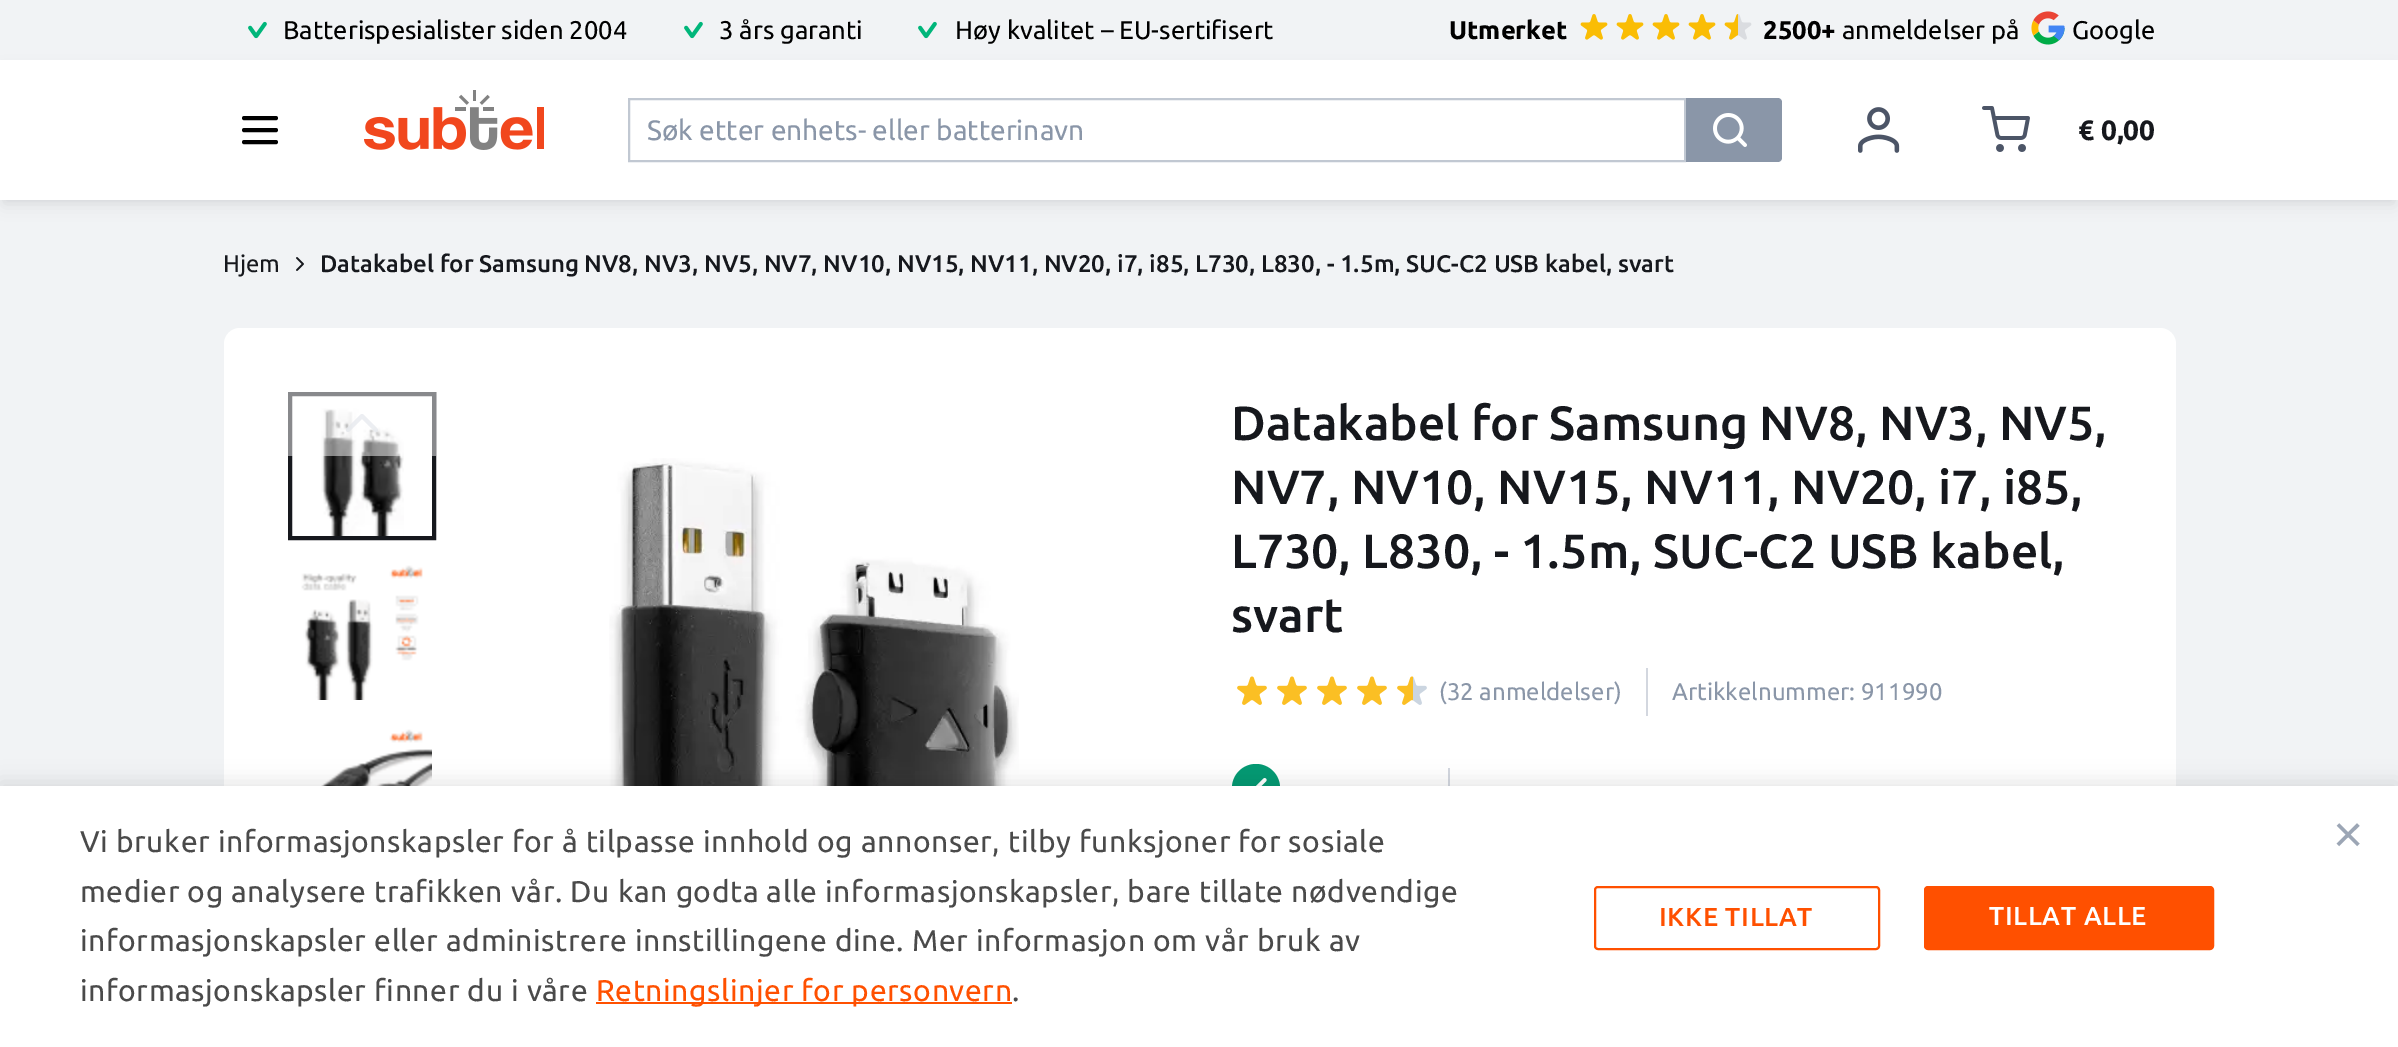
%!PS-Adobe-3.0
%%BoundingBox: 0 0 2398 1047
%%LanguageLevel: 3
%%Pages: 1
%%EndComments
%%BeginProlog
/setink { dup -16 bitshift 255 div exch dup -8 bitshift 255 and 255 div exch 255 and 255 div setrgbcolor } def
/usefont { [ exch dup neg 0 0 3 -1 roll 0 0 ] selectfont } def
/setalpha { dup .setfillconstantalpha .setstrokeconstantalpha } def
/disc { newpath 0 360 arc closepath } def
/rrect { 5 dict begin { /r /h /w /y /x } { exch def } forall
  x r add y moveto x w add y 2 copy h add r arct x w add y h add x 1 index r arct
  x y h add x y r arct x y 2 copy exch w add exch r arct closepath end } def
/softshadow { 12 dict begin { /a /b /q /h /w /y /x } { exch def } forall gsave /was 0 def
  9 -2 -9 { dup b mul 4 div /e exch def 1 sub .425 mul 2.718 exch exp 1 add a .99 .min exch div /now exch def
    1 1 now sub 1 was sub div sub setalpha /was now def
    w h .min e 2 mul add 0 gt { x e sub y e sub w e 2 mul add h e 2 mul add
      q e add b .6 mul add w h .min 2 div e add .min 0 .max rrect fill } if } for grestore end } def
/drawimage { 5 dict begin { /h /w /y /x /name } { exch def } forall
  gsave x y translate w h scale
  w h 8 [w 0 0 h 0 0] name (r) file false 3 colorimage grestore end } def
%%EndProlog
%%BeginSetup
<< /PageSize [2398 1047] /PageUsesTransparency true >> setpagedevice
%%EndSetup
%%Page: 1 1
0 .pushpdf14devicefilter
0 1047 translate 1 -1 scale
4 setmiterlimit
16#F1F3F5 setink
0 0 2398 1047 rectfill
(img1.raw) 248 21 19 18 drawimage
/Ubuntu-Regular 25.6 usefont
16#000000 setink
283 39 moveto (Batterispesialister siden 2004) show
(img1.raw) 684 21 19 18 drawimage
719 39 moveto (3 års garanti) show
(img1.raw) 918 21 19 18 drawimage
955 39 moveto (Høy kvalitet – EU-sertifisert) show
/Ubuntu-Bold 25.6 usefont
1449 39 moveto (Utmerket) show
(img2.raw) 1580 14 28 26 drawimage
(img2.raw) 1616 14 28 26 drawimage
(img2.raw) 1652 14 28 26 drawimage
(img2.raw) 1688 14 28 26 drawimage
(img3.raw) 1724 14 28 26 drawimage
1763 39 moveto (2500+) show
/Ubuntu-Regular 25.6 usefont
1842 39 moveto (anmeldelser på) show
(img4.raw) 2031 11 34 34 drawimage
2072 39 moveto (Google) show
16#101828 setink
4 72 2390 132 0 8 0.1 softshadow
4 68 2390 132 0 4 0.06 softshadow
16#FFFFFF setink
0 60 2398 140 rectfill
16#000000 setink
4 setlinewidth
1 setlinecap
1 setlinejoin
244 118 moveto 276 118 lineto 244 130 moveto 276 130 lineto 244 142 moveto 276 142 lineto stroke
(img5.raw) 364 90 180 60 drawimage
16#C1C8D2 setink
2 setlinewidth
0 setlinecap
0 setlinejoin
629 99 1056 62 rectstroke
/Ubuntu-Regular 28 usefont
16#8A96A8 setink
647 140 moveto (Søk etter enhets- eller batterinavn) show
1686 98 moveto 1778 98 lineto 1780 98 1782 100 1782 102 curveto 1782 158 lineto 1782 160 1780 162 1778 162 curveto 1686 162 lineto closepath fill
(img6.raw) 1713 113 34 34 drawimage
(img7.raw) 1858 107 42 46 drawimage
(img8.raw) 1982 106 48 46 drawimage
/Ubuntu-Bold 28 usefont
16#16181D setink
2078 140 moveto (€ 0,00) show
/Ubuntu-Regular 24 usefont
223 272 moveto (Hjem) show
(img9.raw) 296 257 8 14 drawimage
/Ubuntu-Medium 24 usefont
320 272 moveto (Datakabel for Samsung NV8, NV3, NV5, NV7, NV10, NV15, NV11, NV20, i7, i85, L730, L830, - 1.5m, SUC-C2 USB kabel, svart) show
16#FFFFFF setink
224 328 1952 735 16 rrect fill
16#16181D setink
4 setlinewidth
290 394 144 144 rectstroke
(img10.raw) 321 408 83 128 drawimage
(img11.raw) 301 565 122 135 drawimage
(img12.raw) 299 729 133 57 drawimage
0.49 setalpha
16#FFFFFF setink
288 392 148 64 rectfill
0.7 setalpha
16#E4E7EC setink
1 setlinecap
1 setlinejoin
348 430 moveto 362 416 lineto 376 430 lineto stroke
1 setalpha
(img13.raw) 609 458 410 328 drawimage
/Ubuntu-Medium 48 usefont
16#16181D setink
[
    [(Datakabel for Samsung NV8, NV3, NV5,) 1231 440]
    [(NV7, NV10, NV15, NV11, NV20, i7, i85,) 1231 504]
    [(L730, L830, - 1.5m, SUC-C2 USB kabel,) 1231 568]
    [(svart) 1231 632]
] { aload pop moveto show } forall
(img14.raw) 1237 676 30 29 drawimage
(img14.raw) 1277 676 30 29 drawimage
(img14.raw) 1317 676 30 29 drawimage
(img14.raw) 1357 676 30 29 drawimage
(img15.raw) 1397 676 30 29 drawimage
/Ubuntu-Regular 24 usefont
16#8A96A8 setink
1439 700 moveto (\(32 anmeldelser\)) show
16#D3D7DF setink
1646 668 2 48 rectfill
16#8A96A8 setink
1672 700 moveto (Artikkelnummer: 911990) show
16#049A72 setink
1256 788 24 disc fill
(img16.raw) 1256 778 11 8 drawimage
16#D3D7DF setink
1448 768 2 18 rectfill
16#000000 setink
0 782 2398 262 0 10 0.1 softshadow
16#FFFFFF setink
0 786 2398 261 rectfill
/Ubuntu-Regular 30 usefont
16#4A4A4A setink
80 852 moveto 0.6 0 (Vi bruker informasjonskapsler for å tilpasse innhold og annonser, tilby funksjoner for sosiale) ashow
80 902 moveto 0.6 0 (medier og analysere trafikken vår. Du kan godta alle informasjonskapsler, bare tillate nødvendige) ashow
80 951 moveto 0.6 0 (informasjonskapsler eller administrere innstillingene dine. Mer informasjon om vår bruk av) ashow
80 1001 moveto 0.6 0 (informasjonskapsler finner du i våre) ashow
16#FF5000 setink
596 1002 416 2 rectfill
596 1001 moveto 0.6 0 (Retningslinjer for personvern) ashow
16#4A4A4A setink
1012 1001 moveto 0.6 0 (.) ashow
16#FF5000 setink
2 setlinewidth
0 setlinecap
0 setlinejoin
1595 887 284 62 3 rrect stroke
/Ubuntu-Medium 26 usefont
1659 926 moveto 0.75 0 (IKKE TILLAT) ashow
1925 887 288 62 3 rrect gsave fill grestore
stroke
16#FFFFFF setink
1989 925 moveto 0.75 0 (TILLAT ALLE) ashow
/LiberationSans-Regular 52 usefont
16#9CA6B5 setink
2333 852 moveto (×) show
.poppdf14devicefilter showpage
%%EOF
